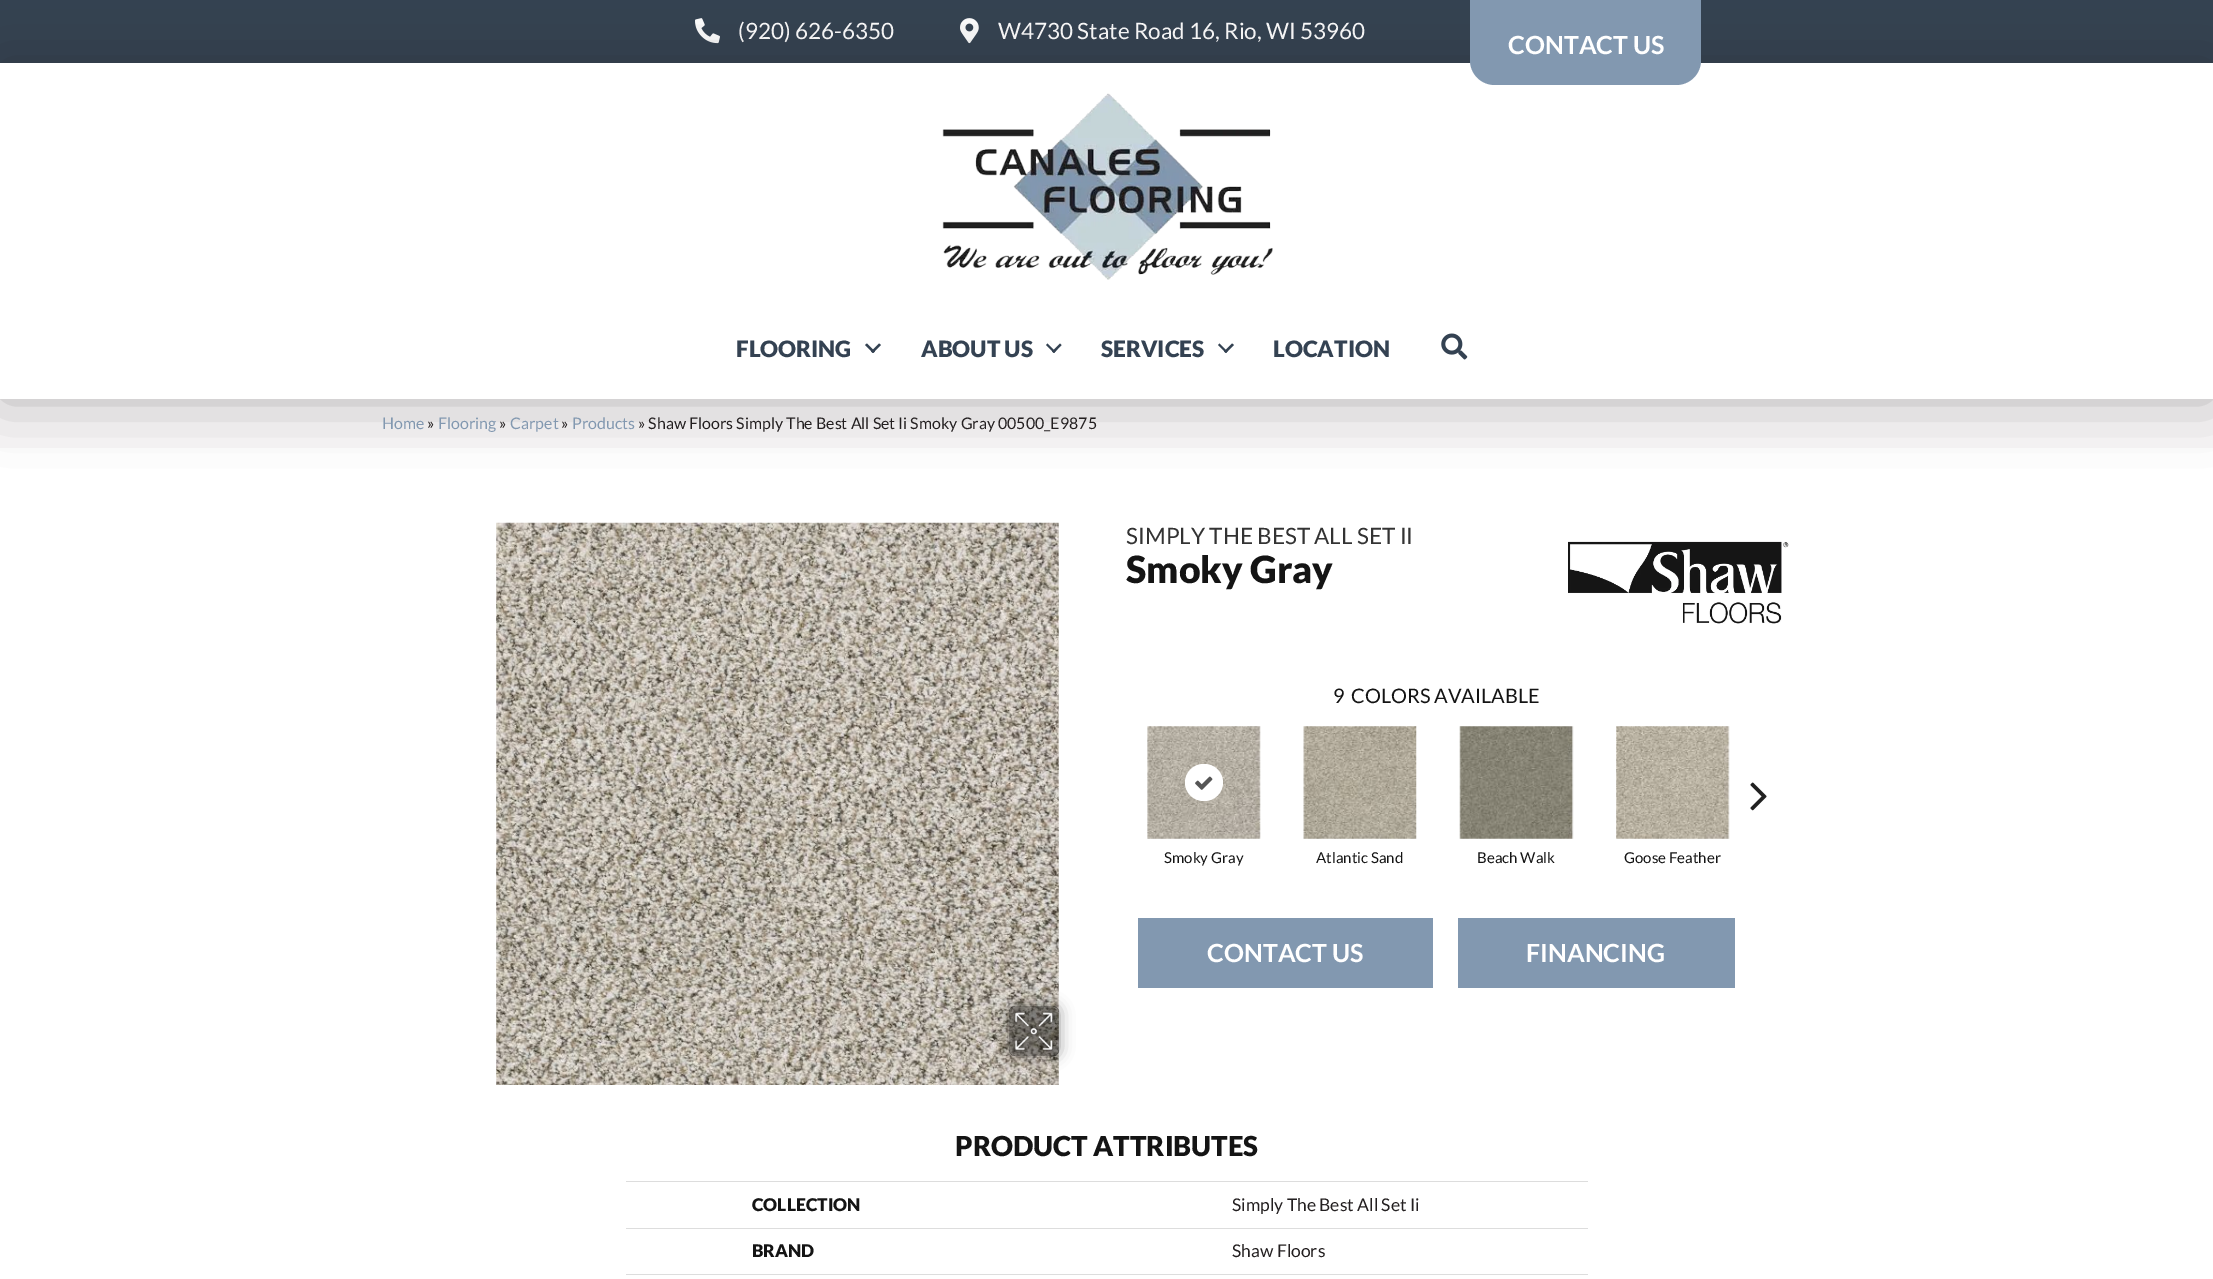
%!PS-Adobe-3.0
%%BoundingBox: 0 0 2213 1279
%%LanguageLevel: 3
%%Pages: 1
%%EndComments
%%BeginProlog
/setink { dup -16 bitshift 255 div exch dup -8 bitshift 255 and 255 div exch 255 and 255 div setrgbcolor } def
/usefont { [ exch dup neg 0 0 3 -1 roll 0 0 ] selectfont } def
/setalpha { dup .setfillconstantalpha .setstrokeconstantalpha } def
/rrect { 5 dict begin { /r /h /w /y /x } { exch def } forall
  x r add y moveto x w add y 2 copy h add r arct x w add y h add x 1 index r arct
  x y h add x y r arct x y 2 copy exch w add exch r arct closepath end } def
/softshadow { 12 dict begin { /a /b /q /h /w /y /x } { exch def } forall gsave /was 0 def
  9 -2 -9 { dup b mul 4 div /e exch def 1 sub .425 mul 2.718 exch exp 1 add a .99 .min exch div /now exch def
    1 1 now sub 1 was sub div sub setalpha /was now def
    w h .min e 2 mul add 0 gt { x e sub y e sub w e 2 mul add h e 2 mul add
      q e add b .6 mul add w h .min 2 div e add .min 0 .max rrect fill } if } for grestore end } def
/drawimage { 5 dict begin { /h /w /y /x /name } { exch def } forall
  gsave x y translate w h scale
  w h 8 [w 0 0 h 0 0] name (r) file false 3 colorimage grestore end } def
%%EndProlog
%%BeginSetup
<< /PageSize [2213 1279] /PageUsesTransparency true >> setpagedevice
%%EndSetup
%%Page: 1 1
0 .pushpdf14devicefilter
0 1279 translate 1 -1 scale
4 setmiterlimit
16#FFFFFF setink
0 0 2213 1279 rectfill
16#344252 setink
0 0 2213 63 rectfill
(img1.raw) 695 18 25 26 drawimage
/Lato-Regular 22.5 usefont
16#FFFFFF setink
738 39 moveto (\(920\) 626-6350) show
(img2.raw) 960 18 19 26 drawimage
998 39 moveto (W4730 State Road 16, Rio, WI 53960) show
16#F7F7F7 setink
0 399 2213 49 rectfill
16#231F20 setink
0 63 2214 336 0 31 0.32 softshadow
16#FFFFFF setink
0 63 2213 336 rectfill
16#8298B0 setink
1470 0 moveto 1701 0 lineto 1701 60 lineto 1701 74 1690 85 1676 85 curveto 1495 85 lineto 1481 85 1470 74 1470 60 curveto closepath fill
/Lato-Bold 25 usefont
16#FFFFFF setink
1508 54 moveto (CONTACT US) show
(img3.raw) 942 93 331 187 drawimage
/Lato-Black 22.5 usefont
16#344252 setink
736 357 moveto (FLOORING) show
879 343.5 moveto 881 345 lineto 873 353 lineto 871 351.5 lineto closepath fill
867 343.5 moveto 875 351.5 lineto 873 353 lineto 865 345 lineto closepath fill
921 357 moveto (ABOUT US) show
1060 343.5 moveto 1061.5 345 lineto 1054 353 lineto 1052 351.5 lineto closepath fill
1047.5 343.5 moveto 1055.5 351.5 lineto 1054 353 lineto 1046 345 lineto closepath fill
1101 357 moveto (SERVICES) show
1232 343.5 moveto 1234 345 lineto 1226 353 lineto 1224 351.5 lineto closepath fill
1219.5 343.5 moveto 1227.5 351.5 lineto 1226 353 lineto 1218 345 lineto closepath fill
1273 357 moveto (LOCATION) show
(img4.raw) 1441 333 27 27 drawimage
/Lato-Regular 15.95 usefont
16#8298B0 setink
382 429 moveto (Home) show
16#231F20 setink
427 429 moveto (») show
16#8298B0 setink
438 429 moveto (Flooring) show
16#231F20 setink
499 429 moveto (») show
16#8298B0 setink
510 429 moveto (Carpet) show
16#231F20 setink
561 429 moveto (») show
16#8298B0 setink
572 429 moveto (Products) show
16#231F20 setink
638 429 moveto (» Shaw Floors Simply The Best All Set Ii Smoky Gray 00500_E9875) show
(img5.raw) 496 522 563 563 drawimage
gsave
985 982 moveto 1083 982 lineto 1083 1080 lineto 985 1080 lineto closepath 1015 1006 moveto 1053 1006 lineto 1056.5 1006 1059 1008.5 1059 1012 curveto 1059 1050 lineto 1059 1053.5 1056.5 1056 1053 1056 curveto 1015 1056 lineto 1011.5 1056 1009 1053.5 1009 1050 curveto 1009 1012 lineto 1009 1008.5 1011.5 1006 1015 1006 curveto closepath eoclip newpath
16#000000 setink
1009 1006 50 50 6 7.5 0.41 softshadow
grestore
0.4 setalpha
16#000000 setink
1009 1006 50 50 6 rrect fill
1 setalpha
(img6.raw) 1011 1008 46 46 drawimage
/Lato-Regular 22.5 usefont
16#333333 setink
1126 544 moveto (SIMPLY THE BEST ALL SET II) show
/Lato-Black 37.5 usefont
16#141414 setink
1126 583 moveto (Smoky Gray) show
(img7.raw) 1568 541 221 83 drawimage
/Lato-Regular 20 usefont
1333 703 moveto (9) show
1351 703 moveto (COLORS AVAILABLE) show
(img8.raw) 1750 782 17 29 drawimage
(img9.raw) 1147 726 114 113 drawimage
16#FFFFFF setink
1185 764 38 37 18.5 rrect fill
(img10.raw) 1195 776 18 14 drawimage
/Lato-Regular 15 usefont
16#141414 setink
1164 863 moveto (Smoky Gray) show
(img11.raw) 1303 726 114 113 drawimage
1316 863 moveto (Atlantic Sand) show
(img12.raw) 1459 726 115 113 drawimage
1477 863 moveto (Beach Walk) show
(img13.raw) 1616 726 114 113 drawimage
1624 863 moveto (Goose Feather) show
16#8298B0 setink
1138 918 295 70 rectfill
/Lato-Bold 25 usefont
16#FFFFFF setink
1207 962 moveto (CONTACT US) show
16#8298B0 setink
1458 918 277 70 rectfill
16#FFFFFF setink
1526 962 moveto (FINANCING) show
/Lato-Black 27.5 usefont
16#141414 setink
955 1156 moveto (PRODUCT ATTRIBUTES) show
/Lato-Black 17.5 usefont
752 1211 moveto (COLLECTION) show
16#DDDDDD setink
626 1181 962 1 rectfill
/Lato-Regular 17.5 usefont
16#231F20 setink
1232 1211 moveto (Simply The Best All Set Ii) show
/Lato-Black 17.5 usefont
16#141414 setink
752 1257 moveto (BRAND) show
16#DDDDDD setink
626 1228 962 1 rectfill
/Lato-Regular 17.5 usefont
16#231F20 setink
1232 1257 moveto (Shaw Floors) show
16#DDDDDD setink
626 1274 962 1 rectfill
.poppdf14devicefilter showpage
%%EOF
